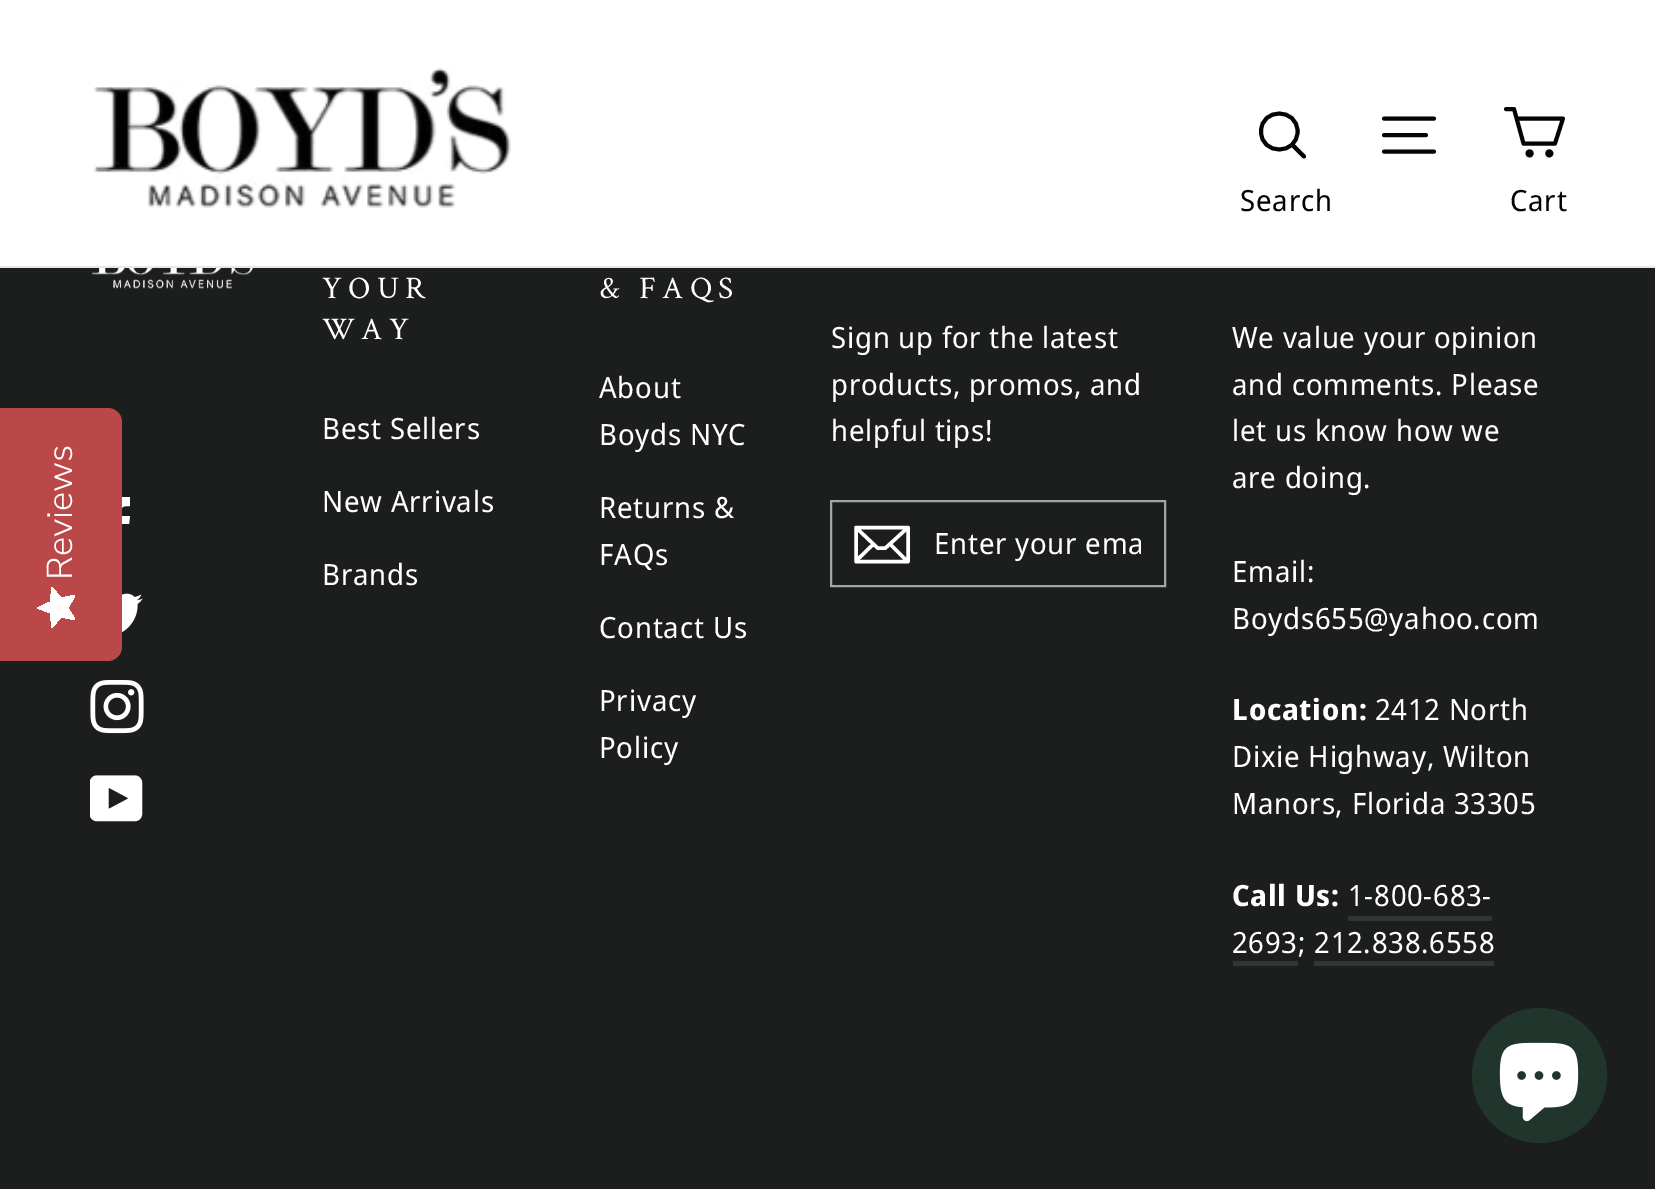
%!PS-Adobe-3.0
%%BoundingBox: 0 0 1655 1189
%%LanguageLevel: 3
%%Pages: 1
%%EndComments
%%BeginProlog
/setink { dup -16 bitshift 255 div exch dup -8 bitshift 255 and 255 div exch 255 and 255 div setrgbcolor } def
/usefont { [ exch dup neg 0 0 3 -1 roll 0 0 ] selectfont } def
/disc { newpath 0 360 arc closepath } def
/drawimage { 5 dict begin { /h /w /y /x /name } { exch def } forall
  gsave x y translate w h scale
  w h 8 [w 0 0 h 0 0] name (r) file false 3 colorimage grestore end } def
%%EndProlog
%%BeginSetup
<< /PageSize [1655 1189] >> setpagedevice
%%EndSetup
%%Page: 1 1
0 1189 translate 1 -1 scale
4 setmiterlimit
16#1C1D1D setink
0 0 1655 1189 rectfill
16#FFFFFF setink
121 548 moveto 121 524 lineto 129 524 lineto 130 516 lineto 121 516 lineto 121 507 121 506 130 506 curveto 130 497 lineto 114 497 111 498 111 516 curveto 103 516 lineto 103 524 lineto 111 524 lineto 111 548 lineto closepath fill
16#BA4848 setink
0 661 moveto 0 408 lineto 108 408 lineto 115 408 122 414 122 422 curveto 122 647 lineto 122 655 115 661 108 661 curveto closepath fill
/NunitoSans-Light 36 usefont
16#FFFFFF setink
gsave 72 580 translate -90 rotate 0 0 moveto (Reviews) show grestore
gsave 68 608 moveto 75 619 lineto 75 620 lineto 61 617 lineto 52 628 lineto 50 613 lineto 37 608 lineto 50 602 lineto 52 587 lineto 61 598 lineto 75 595 lineto 75 596 lineto closepath clip newpath
<< /ShadingType 2 /ColorSpace /DeviceRGB /Coords [37 628 37 587] /Extend [true true] /Function << /FunctionType 2 /Domain [0 1] /C0 [0.996 0.996 0.996] /C1 [0.996 0.996 0.996] /N 1 >> >> shfill grestore
0 0 1655 266 rectfill
16#E8E8E1 setink
0 266 1655 2 rectfill
(img1.raw) 94 68 417 140 drawimage
16#040404 setink
3.9 setlinewidth
1 setlinecap
1 setlinejoin
1384 118.5 moveto 1434 118.5 lineto 1384 135 moveto 1426 135 lineto 1384 151.5 moveto 1434 151.5 lineto stroke
1297.5 131.5 moveto 1297.5 155.5 1261 155.5 1261 131.5 curveto 1261 107.5 1297.5 107.5 1297.5 131.5 curveto closepath 1304 156.5 moveto 1292.5 145 lineto stroke
/NotoSansDisplay-Regular 29.25 usefont
1240 211 moveto 0.8 0 (Search) ashow
1517 118.5 moveto 1563 118.5 lineto 1555 143.5 lineto 1523.5 143.5 lineto 1514 109 lineto 1506 109 lineto stroke
0 setlinecap
0 setlinejoin
1529.6 153.4 2 disc stroke
1549.3 153.4 2 disc stroke
1510 211 moveto 0.8 0 (Cart) ashow
(img2.raw) 91 268 162 21 drawimage
(img3.raw) 122 593 21 40 drawimage
(img4.raw) 90 680 54 54 drawimage
(img5.raw) 90 775 53 47 drawimage
/CrimsonText-Regular 31.5 usefont
16#FFFFFF setink
322 298 moveto 6.25 0 (YOUR) ashow
322 339 moveto 6.25 0 (WAY) ashow
/NotoSansDisplay-Regular 29.25 usefont
322 439 moveto 0.8 0 (Best Sellers) ashow
322 512 moveto 0.8 0 (New Arrivals) ashow
322 585 moveto 0.8 0 (Brands) ashow
/CrimsonText-Regular 31.5 usefont
599 298 moveto 6.25 0 (& FAQS) ashow
/NotoSansDisplay-Regular 29.25 usefont
599 398 moveto 0.8 0 (About) ashow
599 445 moveto 0.8 0 (Boyds NYC) ashow
599 518 moveto 0.8 0 (Returns &) ashow
599 565 moveto 0.8 0 (FAQs) ashow
599 638 moveto 0.8 0 (Contact Us) ashow
599 711 moveto 0.8 0 (Privacy) ashow
599 758 moveto 0.8 0 (Policy) ashow
831 348 moveto 0.75 0 (Sign up for the latest) ashow
831 395 moveto 0.75 0 (products, promos, and) ashow
831 441 moveto 0.75 0 (helpful tips!) ashow
16#A4A5A5 setink
2 setlinewidth
831 501 334 85 rectstroke
16#FFFFFF setink
3.4 setlinewidth
1 setlinecap
1 setlinejoin
908 561.5 moveto 856 561.5 lineto 856 527.5 lineto 908 527.5 lineto closepath 856 527.5 moveto 877.5 548 lineto 885.5 548 lineto 908 527.5 lineto 873.5 544 moveto 856.5 560.5 lineto 907.5 561.5 moveto 890 544 lineto stroke
gsave
934 522 207 41 rectclip
934 554 moveto 0.75 0 (Enter your ema) ashow
grestore
1232 348 moveto 0.75 0 (We value your opinion) ashow
1232 395 moveto 0.75 0 (and comments. Please) ashow
1232 441 moveto 0.75 0 (let us know how we) ashow
1232 488 moveto 0.75 0 (are doing.) ashow
1232 582 moveto 0.75 0 (Email:) ashow
1232 629 moveto 0.75 0 (Boyds655@yahoo.com) ashow
/NotoSansDisplay-Bold 29.25 usefont
1232 720 moveto 0.75 0 (Location:) ashow
/NotoSansDisplay-Regular 29.25 usefont
1375 720 moveto 0.75 0 (2412 North) ashow
1232 767 moveto 0.75 0 (Dixie Highway, Wilton) ashow
1232 814 moveto 0.75 0 (Manors, Florida 33305) ashow
/NotoSansDisplay-Bold 29.25 usefont
1232 906 moveto 0.75 0 (Call Us:) ashow
/NotoSansDisplay-Regular 29.25 usefont
1348 906 moveto 0.75 0 (1-800-683-) ashow
16#333434 setink
1348 916 144 5 rectfill
16#FFFFFF setink
1232 953 moveto 0.75 0 (2693) ashow
16#333434 setink
1233 961 65 5 rectfill
16#FFFFFF setink
1298 953 moveto 0.75 0 (; 212.838.6558) ashow
16#333434 setink
1314 961 180 5 rectfill
16#20362D setink
1539.5 1075.5 67.5 disc fill
(img6.raw) 1499 1042 80 80 drawimage
showpage
%%EOF
